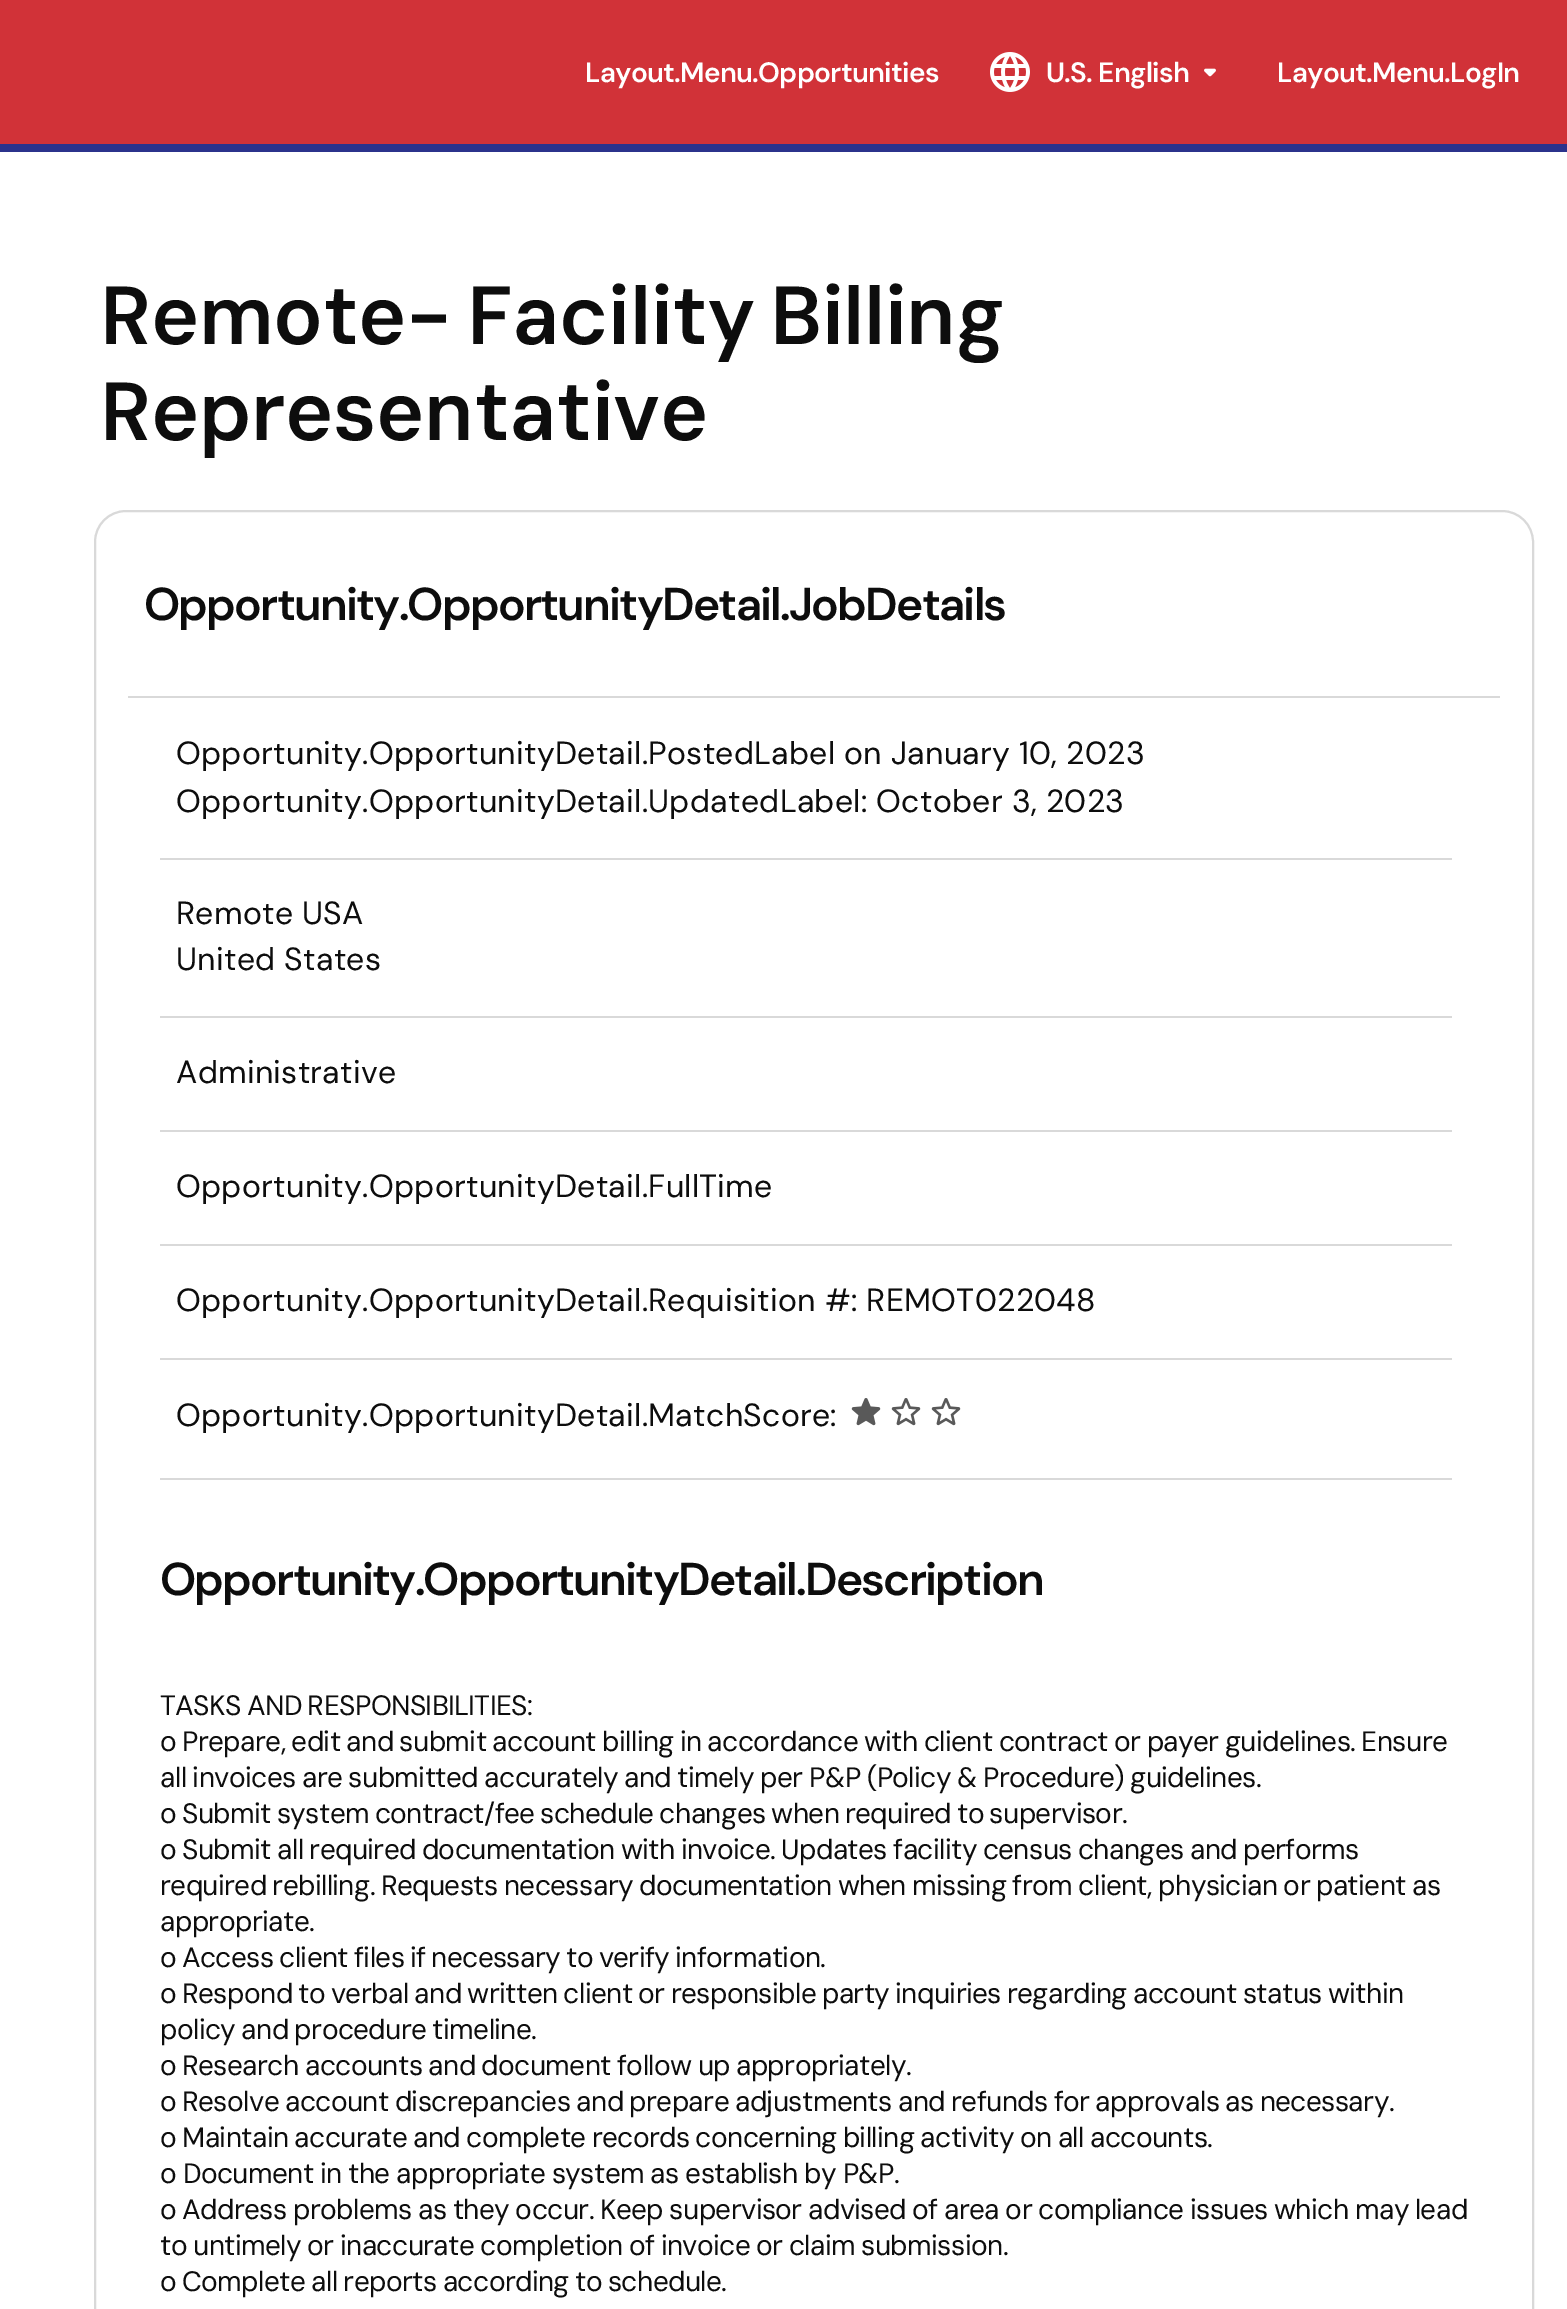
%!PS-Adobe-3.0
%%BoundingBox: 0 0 1567 2309
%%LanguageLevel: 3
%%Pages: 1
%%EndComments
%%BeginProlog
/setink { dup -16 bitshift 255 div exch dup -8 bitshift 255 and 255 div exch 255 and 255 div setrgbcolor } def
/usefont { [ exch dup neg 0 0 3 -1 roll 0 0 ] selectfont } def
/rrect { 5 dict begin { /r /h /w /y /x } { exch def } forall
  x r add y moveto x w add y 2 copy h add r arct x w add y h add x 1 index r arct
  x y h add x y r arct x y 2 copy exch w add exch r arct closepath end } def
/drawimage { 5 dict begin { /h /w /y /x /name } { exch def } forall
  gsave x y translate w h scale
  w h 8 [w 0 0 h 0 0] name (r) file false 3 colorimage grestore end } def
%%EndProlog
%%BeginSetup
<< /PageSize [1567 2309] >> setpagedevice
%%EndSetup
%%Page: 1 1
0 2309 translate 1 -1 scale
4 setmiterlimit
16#FFFFFF setink
0 0 1567 2309 rectfill
16#D13238 setink
0 0 1567 144 rectfill
16#2B328C setink
0 144 1567 8 rectfill
/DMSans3-SemiBold 28 usefont
16#FFFFFF setink
585 82 moveto -0.7 0 (Layout.Menu.Opportunities) ashow
(img1.raw) 990 52 40 40 drawimage
1046 82 moveto -0.7 0 (U.S. English) ashow
(img2.raw) 1204 68 12 9 drawimage
1277 82 moveto -0.7 0 (Layout.Menu.LogIn) ashow
/DMSans-SemiBold 82 usefont
16#0D0D0D setink
100 344 moveto -5 0 32 -0.5 0 (Remote- Facility Billing) awidthshow
100 440 moveto -0.5 0 (Representative) ashow
16#D9D9D9 setink
2 setlinewidth
95 511 1438 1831 31 rrect stroke
/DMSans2-SemiBold 46 usefont
16#0D0D0D setink
144 620 moveto -1.8 0 (Opportunity.OpportunityDetail.JobDetails) ashow
16#D9D9D9 setink
128 696 1372 2 rectfill
/DMSans-Regular 32 usefont
16#0D0D0D setink
176 764 moveto 0.3 0 (Opportunity.OpportunityDetail.PostedLabel on January 10, 2023) ashow
176 812 moveto 0.3 0 (Opportunity.OpportunityDetail.UpdatedLabel: October 3, 2023) ashow
16#D9D9D9 setink
160 858 1292 2 rectfill
16#0D0D0D setink
176 924 moveto 0.3 0 (Remote USA) ashow
176 970 moveto 0.3 0 (United States) ashow
16#D9D9D9 setink
160 1016 1292 2 rectfill
16#0D0D0D setink
176 1083 moveto 0.3 0 (Administrative) ashow
16#D9D9D9 setink
160 1130 1292 2 rectfill
16#0D0D0D setink
176 1197 moveto 0.3 0 (Opportunity.OpportunityDetail.FullTime) ashow
16#D9D9D9 setink
160 1244 1292 2 rectfill
16#0D0D0D setink
176 1311 moveto 0.3 0 (Opportunity.OpportunityDetail.Requisition #: REMOT022048) ashow
16#D9D9D9 setink
160 1358 1292 2 rectfill
16#0D0D0D setink
176 1426 moveto 0.3 0 (Opportunity.OpportunityDetail.MatchScore:) ashow
(img3.raw) 851 1398 30 28 drawimage
(img4.raw) 891 1398 30 28 drawimage
(img4.raw) 931 1398 30 28 drawimage
16#D9D9D9 setink
160 1478 1292 2 rectfill
/DMSans2-SemiBold 46 usefont
16#0D0D0D setink
160 1595 moveto -1.8 0 (Opportunity.OpportunityDetail.Description) ashow
/DMSans2-Regular 28 usefont
160 1715 moveto -1 0 32 -0.6 0 (TASKS AND RESPONSIBILITIES:) awidthshow
160 1751 moveto -1 0 32 -0.6 0 (o Prepare, edit and submit account billing in accordance with client contract or payer guidelines. Ensure) awidthshow
160 1787 moveto -0.75 0 32 -0.6 0 (all invoices are submitted accurately and timely per P&P \(Policy & Procedure\) guidelines.) awidthshow
160 1823 moveto -1.25 0 32 -0.6 0 (o Submit system contract/fee schedule changes when required to supervisor.) awidthshow
160 1859 moveto -1 0 32 -0.6 0 (o Submit all required documentation with invoice. Updates facility census changes and performs) awidthshow
160 1895 moveto -1 0 32 -0.6 0 (required rebilling. Requests necessary documentation when missing from client, physician or patient as) awidthshow
160 1931 moveto -0.6 0 (appropriate.) ashow
160 1967 moveto -1.25 0 32 -0.6 0 (o Access client files if necessary to verify information.) awidthshow
160 2003 moveto -1.1 0 32 -0.6 0 (o Respond to verbal and written client or responsible party inquiries regarding account status within) awidthshow
160 2039 moveto -1 0 32 -0.6 0 (policy and procedure timeline.) awidthshow
160 2075 moveto -1 0 32 -0.6 0 (o Research accounts and document follow up appropriately.) awidthshow
160 2111 moveto -1 0 32 -0.6 0 (o Resolve account discrepancies and prepare adjustments and refunds for approvals as necessary.) awidthshow
160 2147 moveto -1 0 32 -0.6 0 (o Maintain accurate and complete records concerning billing activity on all accounts.) awidthshow
160 2183 moveto -0.5 0 32 -0.6 0 (o Document in the appropriate system as establish by P&P.) awidthshow
160 2219 moveto -0.75 0 32 -0.6 0 (o Address problems as they occur. Keep supervisor advised of area or compliance issues which may lead) awidthshow
160 2255 moveto -0.75 0 32 -0.6 0 (to untimely or inaccurate completion of invoice or claim submission.) awidthshow
160 2291 moveto -1 0 32 -0.6 0 (o Complete all reports according to schedule.) awidthshow
showpage
%%EOF
